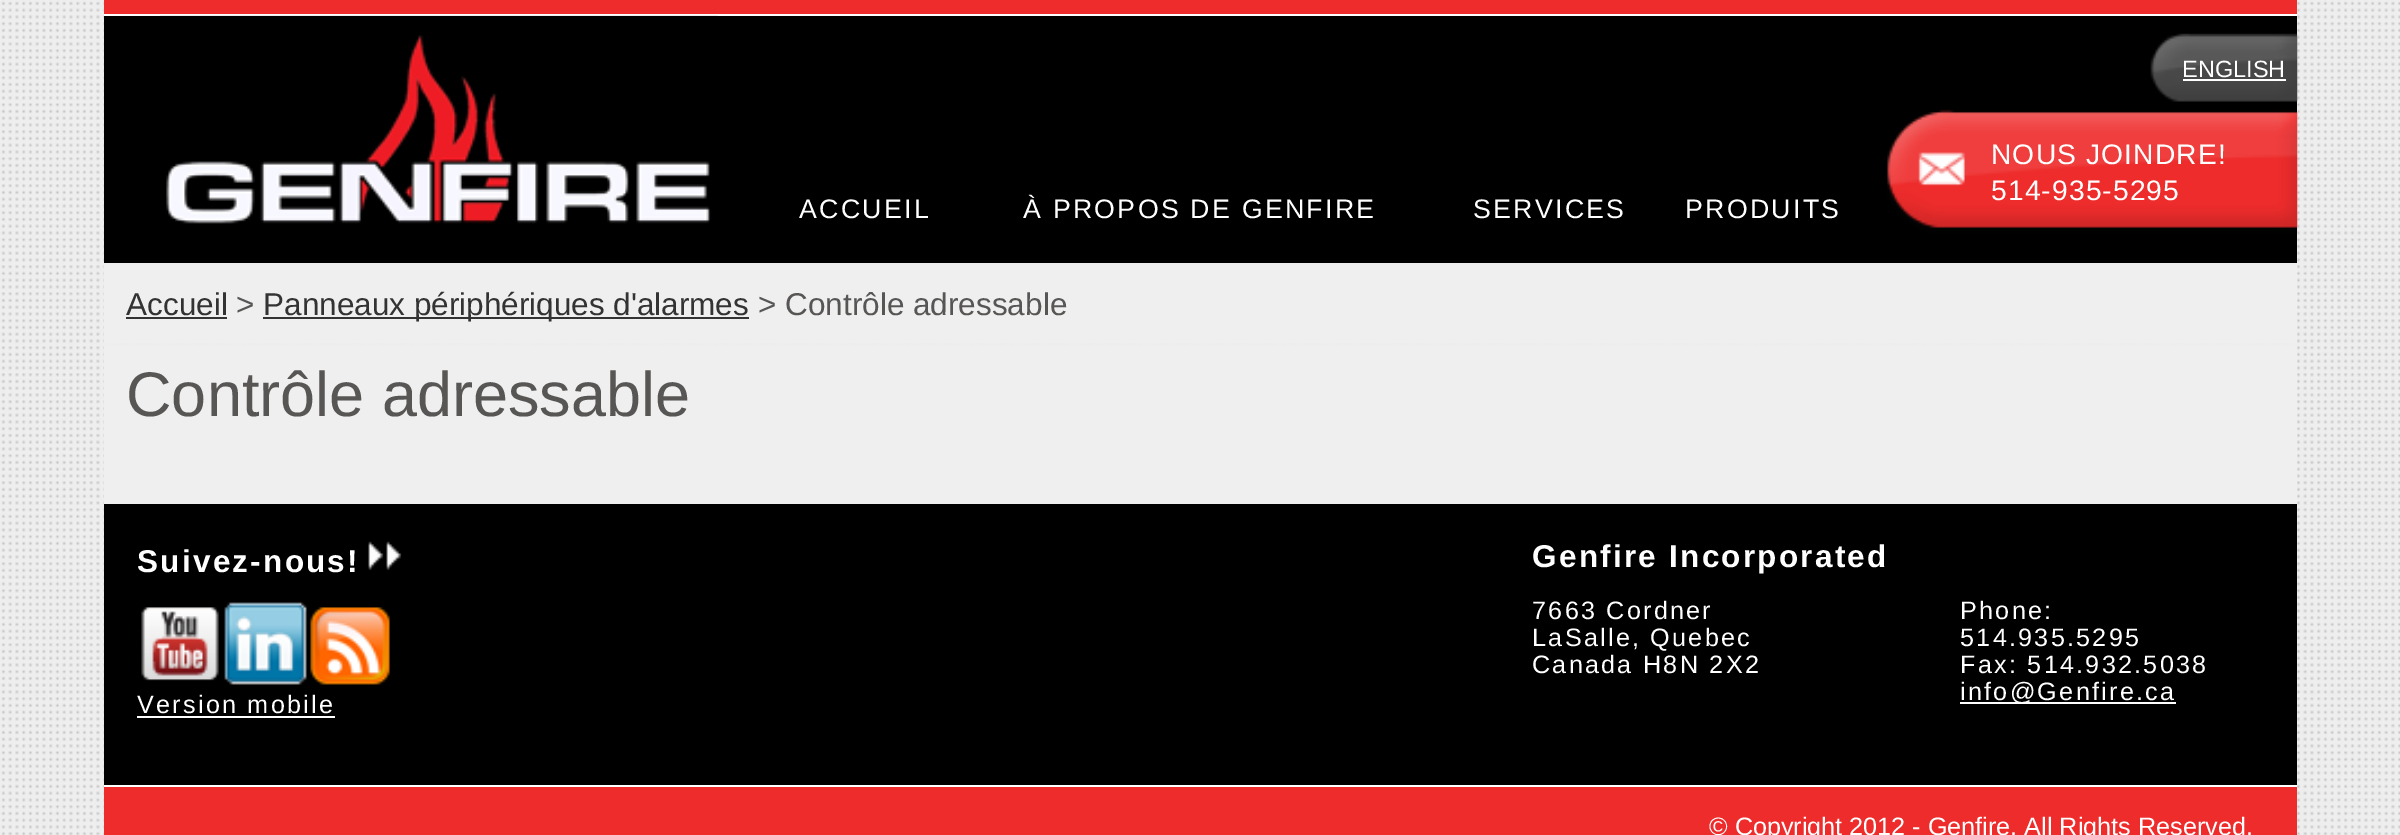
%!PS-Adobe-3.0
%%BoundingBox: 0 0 2400 835
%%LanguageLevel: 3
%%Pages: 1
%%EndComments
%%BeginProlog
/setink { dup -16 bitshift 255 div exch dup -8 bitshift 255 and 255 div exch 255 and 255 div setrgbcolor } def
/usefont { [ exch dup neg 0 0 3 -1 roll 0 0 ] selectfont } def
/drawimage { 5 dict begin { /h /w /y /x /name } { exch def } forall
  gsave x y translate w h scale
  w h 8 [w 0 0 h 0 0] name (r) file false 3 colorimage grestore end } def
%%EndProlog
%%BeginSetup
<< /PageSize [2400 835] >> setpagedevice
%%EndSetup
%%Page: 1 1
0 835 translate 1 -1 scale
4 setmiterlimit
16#FFFFFF setink
0 0 2400 835 rectfill
(img1.raw) 0 0 2400 835 drawimage
[
    [104 0 2193 14 16#EE2C2C]
    [104 14 2193 2 16#FFFFFF]
    [104 16 2193 247 16#000000]
] { aload pop setink rectfill } forall
(img2.raw) 160 15 558 209 drawimage
(img3.raw) 2150 33 148 69 drawimage
/LiberationSans-Regular 23.5 usefont
16#FFFFFF setink
2182 77 moveto (ENGLISH) show
2183 79 103 2 rectfill
(img4.raw) 1887 109 411 124 drawimage
/LiberationSans-Regular 28.25 usefont
1991 164 moveto 1.1 0 (NOUS JOINDRE!) ashow
1991 200 moveto 1.1 0 (514-935-5295) ashow
/LiberationSans-Regular 26.75 usefont
799 218 moveto 2.25 0 (ACCUEIL) ashow
1023 218 moveto 2.25 0 (À PROPOS DE GENFIRE) ashow
1473 218 moveto 2.25 0 (SERVICES) ashow
1685 218 moveto 2.25 0 (PRODUITS) ashow
16#EFEFEF setink
104 265 2193 78 rectfill
/LiberationSans-Regular 31.5 usefont
16#333333 setink
126 315 moveto (Accueil) show
126 317 101 2 rectfill
16#575654 setink
236 315 moveto (>) show
16#333333 setink
263 317 486 2 rectfill
263 315 moveto (Panneaux périphériques d'alarmes) show
16#575654 setink
758 315 moveto (> Contrôle adressable) show
16#EFEFEF setink
104 346 2193 158 rectfill
/LiberationSans-Regular 63 usefont
16#575654 setink
126 416 moveto (Contrôle adressable) show
16#000000 setink
104 504 2193 281 rectfill
/LiberationSans-Bold 31.5 usefont
16#FFFFFF setink
137 572 moveto 2.25 0 (Suivez-nous!) ashow
(img5.raw) 368 541 34 29 drawimage
(img6.raw) 141 607 78 74 drawimage
(img7.raw) 224 602 83 83 drawimage
(img8.raw) 310 607 80 78 drawimage
/LiberationSans-Regular 25.2 usefont
137 713 moveto 2.25 0 (Version mobile) ashow
137 716 198 2 rectfill
/LiberationSans-Bold 31.5 usefont
1532 567 moveto 2.25 0 (Genfire Incorporated) ashow
/LiberationSans-Regular 25.2 usefont
1532 619 moveto 2.25 0 (7663 Cordner) ashow
1532 646 moveto 2.25 0 (LaSalle, Quebec) ashow
1532 673 moveto 2.25 0 (Canada H8N 2X2) ashow
1960 619 moveto 2.25 0 (Phone:) ashow
1960 646 moveto 2.25 0 (514.935.5295) ashow
1960 673 moveto 2.25 0 (Fax: 514.932.5038) ashow
1960 702 216 2 rectfill
1960 700 moveto 2.25 0 (info@Genfire.ca) ashow
16#EE2C2C setink
104 787 2193 48 rectfill
16#FFFFFF setink
104 785 2193 2 rectfill
1709 835 moveto (© Copyright 2012 - Genfire. All Rights Reserved.) show
showpage
%%EOF
